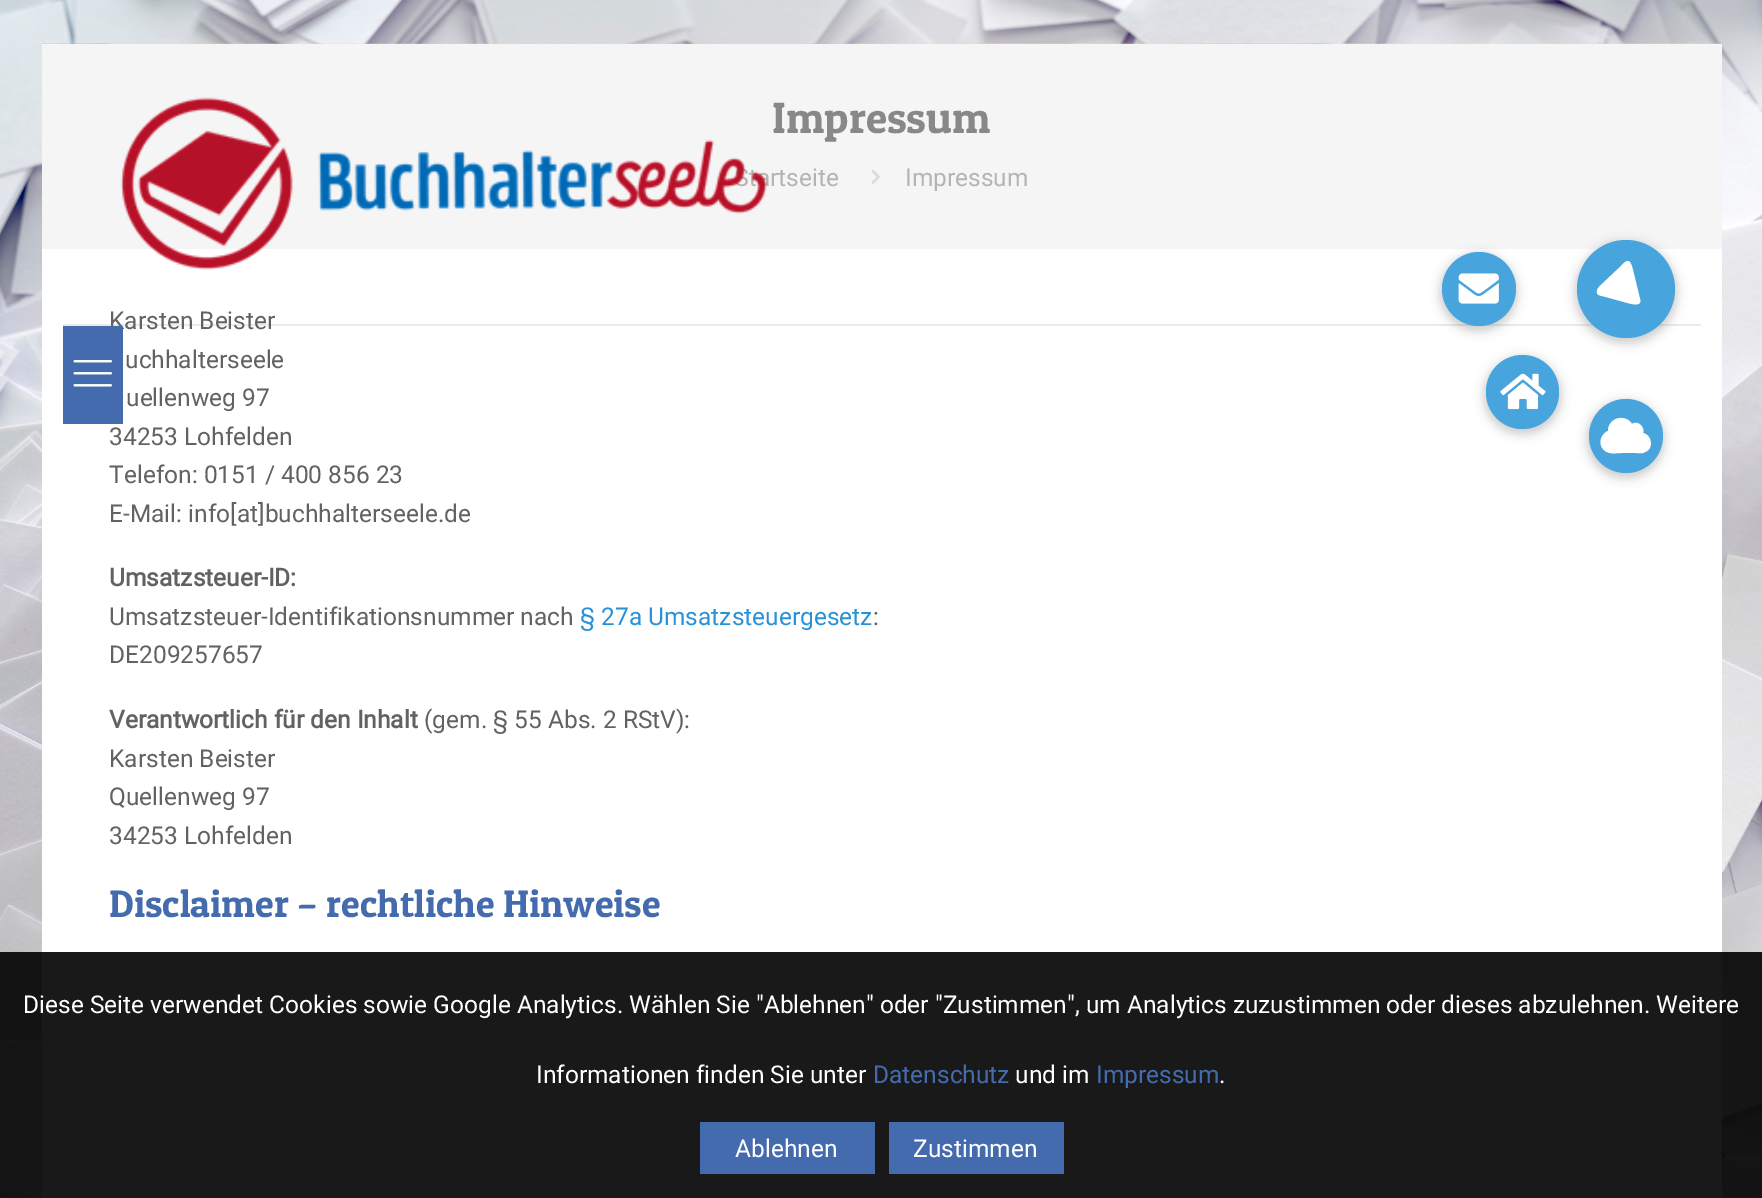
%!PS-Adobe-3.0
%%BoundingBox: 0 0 1762 1198
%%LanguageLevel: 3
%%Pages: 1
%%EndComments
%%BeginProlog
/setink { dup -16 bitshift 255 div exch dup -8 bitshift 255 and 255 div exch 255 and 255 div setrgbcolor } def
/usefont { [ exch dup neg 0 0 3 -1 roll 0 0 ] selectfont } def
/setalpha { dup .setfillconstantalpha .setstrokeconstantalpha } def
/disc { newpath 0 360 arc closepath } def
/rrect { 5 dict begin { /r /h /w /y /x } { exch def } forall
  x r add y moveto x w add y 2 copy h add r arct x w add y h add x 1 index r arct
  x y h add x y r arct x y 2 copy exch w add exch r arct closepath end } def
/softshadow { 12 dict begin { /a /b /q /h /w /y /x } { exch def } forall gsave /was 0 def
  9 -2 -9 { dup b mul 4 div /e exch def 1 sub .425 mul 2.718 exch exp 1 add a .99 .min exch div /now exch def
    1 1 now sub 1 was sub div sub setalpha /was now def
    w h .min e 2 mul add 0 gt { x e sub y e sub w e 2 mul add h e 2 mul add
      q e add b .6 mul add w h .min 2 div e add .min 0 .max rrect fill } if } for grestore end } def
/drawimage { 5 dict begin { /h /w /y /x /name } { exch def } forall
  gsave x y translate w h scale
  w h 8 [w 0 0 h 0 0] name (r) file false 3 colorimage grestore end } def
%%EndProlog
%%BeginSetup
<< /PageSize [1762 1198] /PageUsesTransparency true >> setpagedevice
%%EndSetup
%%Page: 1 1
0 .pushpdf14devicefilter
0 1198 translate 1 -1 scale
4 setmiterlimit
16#FFFFFF setink
0 0 1762 1198 rectfill
(img1.raw) 0 0 1762 1198 drawimage
42 249 1680 949 rectfill
(img2.raw) 42 43 1680 1 drawimage
0.08 setalpha
16#000000 setink
63 324 1638 2 rectfill
1 setalpha
16#F5F5F5 setink
42 44 1680 205 rectfill
/Roboto-Regular 24.5 usefont
16#B4B4B4 setink
734 186 moveto (Startseite) show
(img3.raw) 120 97 647 173 drawimage
16#626262 setink
109 329 moveto (Karsten Beister) show
16#446BAD setink
63 326 60 98 rectfill
(img4.raw) 73 360 39 27 drawimage
/PatuaOne-Regular 43.75 usefont
16#888888 setink
772 133 moveto (Impressum) show
(img5.raw) 871 170 9 14 drawimage
/Roboto-Regular 24.5 usefont
16#B4B4B4 setink
905 186 moveto (Impressum) show
16#626262 setink
[
    [(uchhalterseele) 125 368]
    [(uellenweg 97) 126 406]
    [(34253 Lohfelden) 109 445]
    [(Telefon: 0151 / 400 856 23) 109 483]
    [(E-Mail: info[at]buchhalterseele.de) 109 522]
] { aload pop moveto show } forall
/Roboto-Bold 24.5 usefont
109 586 moveto (Umsatzsteuer-ID:) show
/Roboto-Regular 24.5 usefont
109 625 moveto (Umsatzsteuer-Identifikationsnummer nach) show
16#2991D6 setink
580 625 moveto (§ 27a Umsatzsteuergesetz) show
16#626262 setink
873 625 moveto (:) show
109 663 moveto (DE209257657) show
/Roboto-Bold 24.5 usefont
109 728 moveto (Verantwortlich für den Inhalt) show
/Roboto-Regular 24.5 usefont
[
    [(\(gem. § 55 Abs. 2 RStV\):) 424 728]
    [(Karsten Beister) 109 767]
    [(Quellenweg 97) 109 805]
    [(34253 Lohfelden) 109 844]
] { aload pop moveto show } forall
/PatuaOne-Regular 38.5 usefont
16#446BAD setink
109 917 moveto (Disclaimer – rechtliche Hinweise) show
16#000000 setink
1440 254 77 77 38.5 5 0.2 softshadow
16#48A4DC setink
1479 289 37 disc fill
(img6.raw) 1458 273 41 31 drawimage
16#000000 setink
1575 242 102 101 50.5 5 0.2 softshadow
16#48A4DC setink
1626 289 49 disc fill
16#FFFFFF setink
1640 299 moveto 1643 309 1625 302 1624 302 curveto 1606 297 lineto 1603 296 1598 296 1597 293 curveto 1596 289 1600 286 1602 284 curveto 1620 267 lineto 1628 258 1630 259 1633 270 curveto closepath fill
16#000000 setink
1484 357 77 77 38.5 5 0.2 softshadow
16#48A4DC setink
1486 355 73 74 36.5 rrect fill
(img7.raw) 1500 373 46 37 drawimage
16#000000 setink
1587 401 77 77 38.5 5 0.2 softshadow
16#48A4DC setink
1626 436 37 disc fill
16#FFFFFF setink
1643 433 moveto 1652 435 1654 449 1645 452 curveto 1642 454 1639 453 1636 453 curveto 1622 453 lineto 1615 453 1608 455 1603 449 curveto 1598 443 1601 434 1608 431 curveto 1608 418 1625 413 1632 424 curveto 1638 420 1645 427 1643 433 curveto closepath fill
0.9 setalpha
16#000000 setink
0 952 1762 246 rectfill
/Roboto-Regular 24.5 usefont
1 setalpha
16#FFFFFF setink
23 1013 moveto (Diese Seite verwendet Cookies sowie Google Analytics. Wählen Sie "Ablehnen" oder "Zustimmen", um Analytics zuzustimmen oder dieses abzulehnen. Weitere) show
536 1083 moveto (Informationen finden Sie unter) show
16#446BAD setink
873 1083 moveto (Datenschutz) show
16#FFFFFF setink
1015 1083 moveto (und im) show
16#446BAD setink
1096 1083 moveto (Impressum) show
16#FFFFFF setink
1219 1083 moveto (.) show
16#446BAD setink
700 1122 175 52 rectfill
16#FFFFFF setink
735 1157 moveto (Ablehnen) show
16#446BAD setink
889 1122 175 52 rectfill
16#FFFFFF setink
913 1157 moveto (Zustimmen) show
.poppdf14devicefilter showpage
%%EOF
